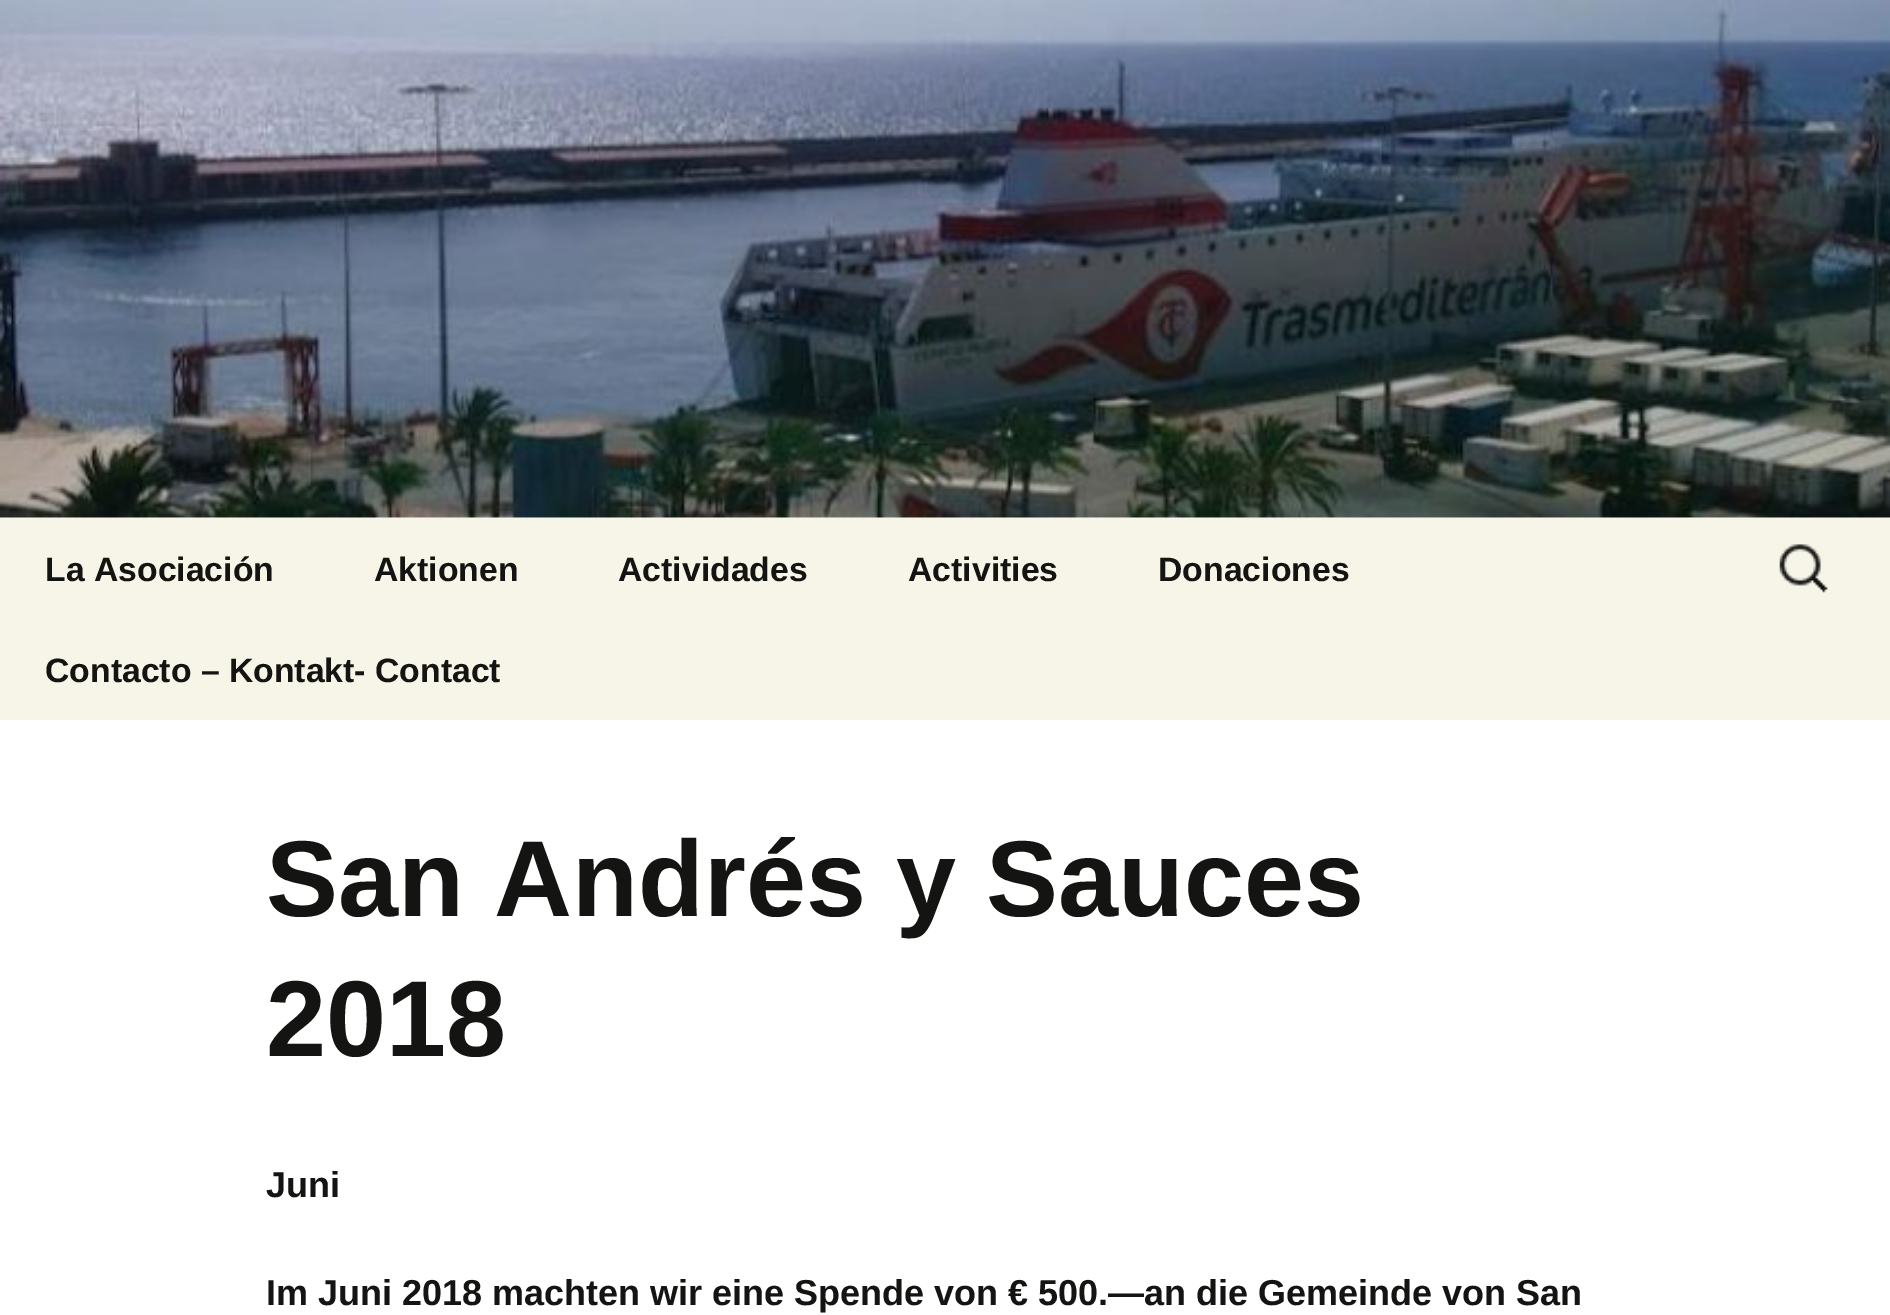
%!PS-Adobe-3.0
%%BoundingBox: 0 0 1890 1315
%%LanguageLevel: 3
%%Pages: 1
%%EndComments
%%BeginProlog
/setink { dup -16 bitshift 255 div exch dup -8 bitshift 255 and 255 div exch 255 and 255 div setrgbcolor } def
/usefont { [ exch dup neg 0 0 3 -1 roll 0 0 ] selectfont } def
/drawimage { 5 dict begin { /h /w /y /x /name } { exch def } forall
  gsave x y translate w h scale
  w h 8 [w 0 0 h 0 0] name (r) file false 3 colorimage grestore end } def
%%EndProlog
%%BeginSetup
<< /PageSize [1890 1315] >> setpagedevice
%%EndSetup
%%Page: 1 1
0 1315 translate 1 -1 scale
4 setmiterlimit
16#FFFFFF setink
0 0 1890 1315 rectfill
(img1.raw) 0 0 1890 518 drawimage
16#F7F5E7 setink
0 518 1890 202 rectfill
/LiberationSans-Bold 33.75 usefont
16#141412 setink
[
    [(La Asociación) 45 581]
    [(Aktionen) 374 581]
    [(Actividades) 618 581]
    [(Activities) 908 581]
    [(Donaciones) 1158 581]
    [(Contacto – Kontakt- Contact) 45 682]
] { aload pop moveto show } forall
(img2.raw) 1779 544 49 49 drawimage
/LiberationSans-Bold 108 usefont
266 916 moveto (San Andrés y Sauces) show
266 1056 moveto (2018) show
/LiberationSans-Bold 36 usefont
266 1197 moveto (Juni) show
266 1305 moveto (Im Juni 2018 machten wir eine Spende von € 500.—an die Gemeinde von San) show
showpage
%%EOF
